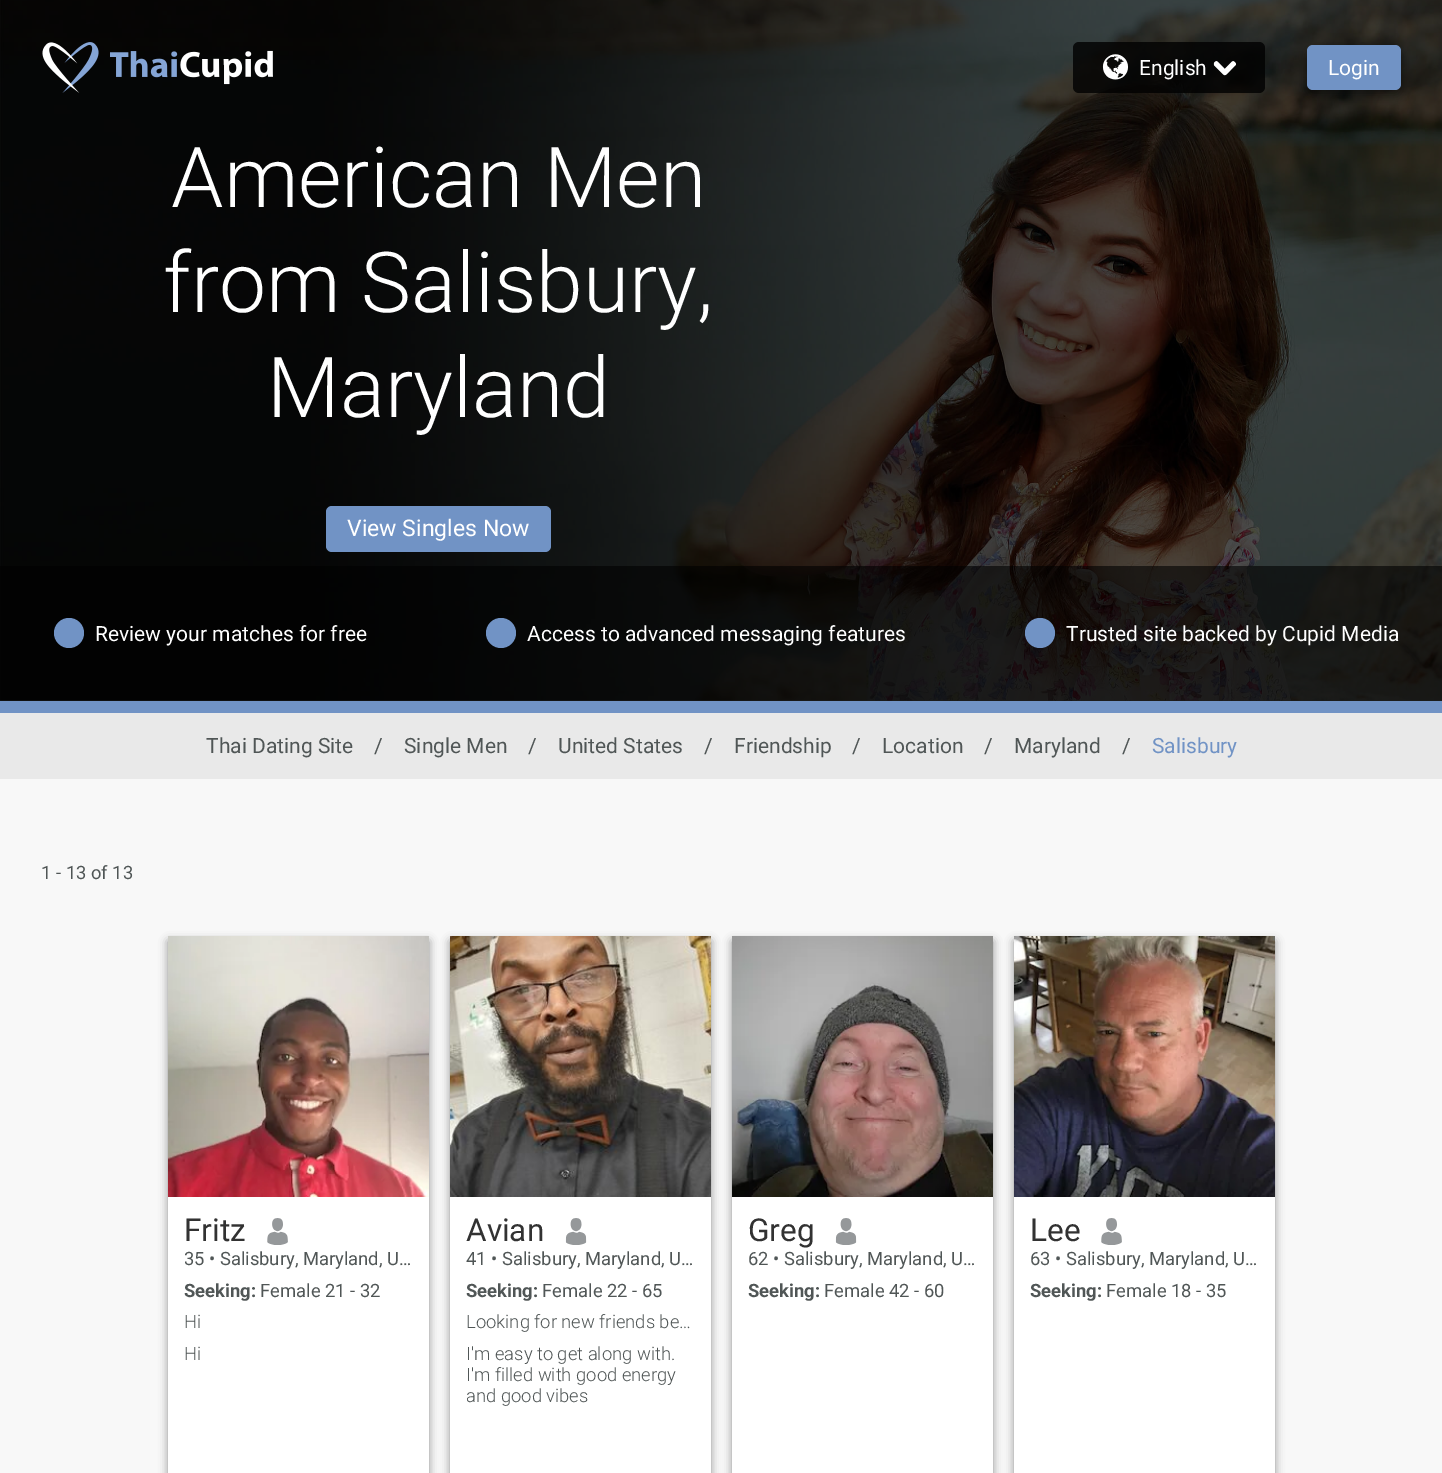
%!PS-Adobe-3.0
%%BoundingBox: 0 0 1442 1473
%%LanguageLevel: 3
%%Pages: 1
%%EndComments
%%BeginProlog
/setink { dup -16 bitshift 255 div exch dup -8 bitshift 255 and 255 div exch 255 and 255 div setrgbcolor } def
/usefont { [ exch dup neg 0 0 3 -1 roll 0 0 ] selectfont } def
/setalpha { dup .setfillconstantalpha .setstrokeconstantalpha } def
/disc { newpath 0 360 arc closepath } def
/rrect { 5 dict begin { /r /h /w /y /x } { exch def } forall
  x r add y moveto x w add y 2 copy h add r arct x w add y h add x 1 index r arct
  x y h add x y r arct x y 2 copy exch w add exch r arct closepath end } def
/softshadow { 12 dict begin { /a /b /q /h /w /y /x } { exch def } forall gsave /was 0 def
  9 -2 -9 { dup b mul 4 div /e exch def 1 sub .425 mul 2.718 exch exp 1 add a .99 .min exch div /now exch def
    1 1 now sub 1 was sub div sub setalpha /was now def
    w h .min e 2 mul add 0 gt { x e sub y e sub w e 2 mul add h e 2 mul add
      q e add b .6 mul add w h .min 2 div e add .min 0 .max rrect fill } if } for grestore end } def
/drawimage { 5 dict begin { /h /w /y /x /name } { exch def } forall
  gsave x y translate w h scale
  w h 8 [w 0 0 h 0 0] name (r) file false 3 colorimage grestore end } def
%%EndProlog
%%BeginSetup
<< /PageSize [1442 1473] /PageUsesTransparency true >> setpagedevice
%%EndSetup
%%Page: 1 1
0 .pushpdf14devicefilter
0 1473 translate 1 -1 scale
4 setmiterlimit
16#F8F8F8 setink
0 0 1442 1473 rectfill
16#4D4D4D setink
0 700 1442 1 rectfill
(img5.raw) 0 0 1442 701 drawimage
(img1.raw) 42 42 57 51 drawimage
(img2.raw) 110 50 163 35 drawimage
0.8 setalpha
16#000000 setink
1073 42 192 51 6 rrect fill
1 setalpha
(img3.raw) 1102 54 26 26 drawimage
/Roboto-Regular 21 usefont
16#FFFFFF setink
1139 75 moveto (English) show
(img4.raw) 1213 61 23 15 drawimage
16#000000 setink
1307 50 94 45 6 4.5 0.4 softshadow
16#7193C5 setink
1307 45 94 45 6 rrect fill
16#FFFFFF setink
1328 75 moveto (Login) show
/Roboto-Light 84 usefont
[
    [(American Men) 171 207]
    [(from Salisbury,) 163 312]
    [(Maryland) 267 417]
] { aload pop moveto show } forall
16#7193C5 setink
326 506 225 46 6 rrect fill
/Roboto-Regular 23 usefont
16#FFFFFF setink
347 536 moveto (View Singles Now) show
0.6 setalpha
16#000000 setink
0 566 1442 135 rectfill
1 setalpha
16#7193C5 setink
69 633 15 disc fill
/Roboto-Regular 21 usefont
16#FFFFFF setink
95 641 moveto (Review your matches for free) show
16#7193C5 setink
501 633 15 disc fill
16#FFFFFF setink
527 641 moveto (Access to advanced messaging features) show
16#7193C5 setink
1040 633 15 disc fill
16#FFFFFF setink
1066 641 moveto (Trusted site backed by Cupid Media) show
16#7193C5 setink
0 701 1442 12 rectfill
16#E9E9E9 setink
0 713 1442 66 rectfill
16#505656 setink
[
    [(Thai Dating Site) 206 753]
    [(/) 374 753]
    [(Single Men) 404 753]
    [(/) 528 753]
    [(United States) 558 753]
    [(/) 704 753]
    [(Friendship) 734 753]
    [(/) 852 753]
    [(Location) 882 753]
    [(/) 984 753]
    [(Maryland) 1014 753]
    [(/) 1122 753]
] { aload pop moveto show } forall
16#7193C5 setink
1152 753 moveto (Salisbury) show
/Roboto-Regular 18.4 usefont
16#505656 setink
41 879 moveto (1 - 13 of 13) show
16#000000 setink
168 941 261 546 0 4.5 0.4 softshadow
16#FFFFFF setink
168 1197 261 276 rectfill
(img6.raw) 168 936 261 261 drawimage
/Roboto-Regular 31.5 usefont
16#323232 setink
184 1241 moveto (Fritz) show
(img7.raw) 267 1218 21 27 drawimage
gsave
185 1250 229 21 rectclip
/Roboto-Regular 18.4 usefont
16#505656 setink
184 1265 moveto (35) show
grestore
/Roboto-Regular 18.4 usefont
16#505656 setink
209 1265 moveto (• Salisbury, Maryland, U…) show
/Roboto-Bold 18.4 usefont
184 1297 moveto (Seeking:) show
/Roboto-Regular 18.4 usefont
260 1297 moveto (Female 21 - 32) show
/Roboto-Light 18.4 usefont
184 1328 moveto (Hi) show
184 1360 moveto (Hi) show
16#000000 setink
450 941 261 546 0 4.5 0.4 softshadow
16#FFFFFF setink
450 1197 261 276 rectfill
(img8.raw) 450 936 261 261 drawimage
/Roboto-Regular 31.5 usefont
16#323232 setink
466 1241 moveto (Avian) show
(img9.raw) 565 1218 22 27 drawimage
/Roboto-Regular 18.4 usefont
16#505656 setink
466 1265 moveto (41 • Salisbury, Maryland, U…) show
/Roboto-Bold 18.4 usefont
466 1297 moveto (Seeking:) show
/Roboto-Regular 18.4 usefont
542 1297 moveto (Female 22 - 65) show
/Roboto-Light 18.4 usefont
[
    [(Looking for new friends be…) 466 1328]
    [(I'm easy to get along with.) 466 1360]
    [(I'm filled with good energy) 466 1381]
] { aload pop moveto show } forall
gsave
467 1344 229 63 rectclip
466 1402 moveto (and good vibes) show
grestore
16#000000 setink
732 941 261 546 0 4.5 0.4 softshadow
16#FFFFFF setink
732 1197 261 276 rectfill
(img10.raw) 732 936 261 261 drawimage
/Roboto-Regular 31.5 usefont
16#323232 setink
748 1241 moveto (Greg) show
(img9.raw) 835 1218 22 27 drawimage
/Roboto-Regular 18.4 usefont
16#505656 setink
748 1265 moveto (62 • Salisbury, Maryland, U…) show
/Roboto-Bold 18.4 usefont
748 1297 moveto (Seeking:) show
/Roboto-Regular 18.4 usefont
824 1297 moveto (Female 42 - 60) show
16#000000 setink
1014 941 261 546 0 4.5 0.4 softshadow
16#FFFFFF setink
1014 1197 261 276 rectfill
(img11.raw) 1014 936 261 261 drawimage
/Roboto-Regular 31.5 usefont
16#323232 setink
1030 1241 moveto (Lee) show
(img7.raw) 1101 1218 21 27 drawimage
/Roboto-Regular 18.4 usefont
16#505656 setink
1030 1265 moveto (63 • Salisbury, Maryland, U…) show
/Roboto-Bold 18.4 usefont
1030 1297 moveto (Seeking:) show
/Roboto-Regular 18.4 usefont
1106 1297 moveto (Female 18 - 35) show
.poppdf14devicefilter showpage
%%EOF
